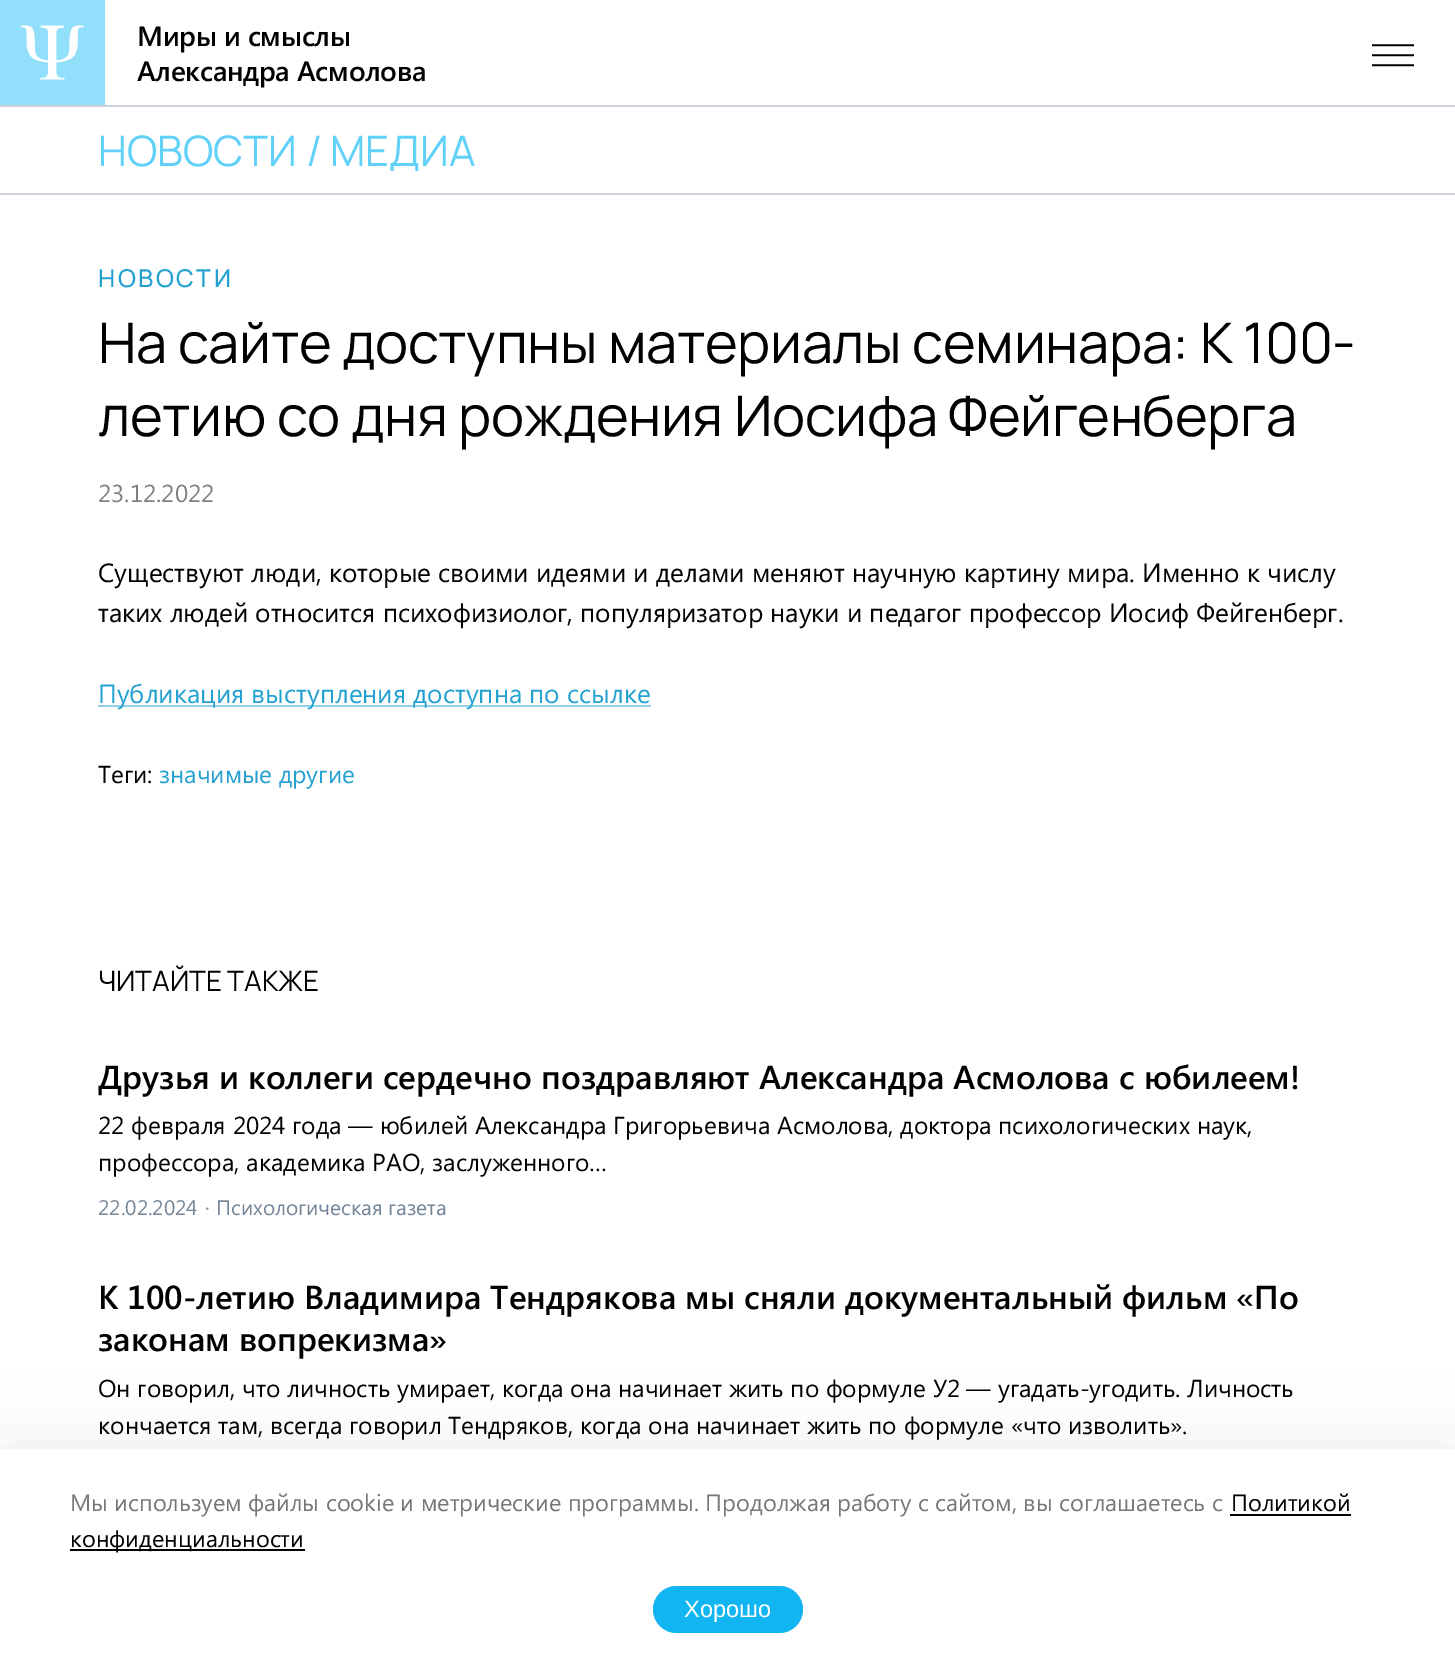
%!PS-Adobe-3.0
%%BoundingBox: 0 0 1455 1667
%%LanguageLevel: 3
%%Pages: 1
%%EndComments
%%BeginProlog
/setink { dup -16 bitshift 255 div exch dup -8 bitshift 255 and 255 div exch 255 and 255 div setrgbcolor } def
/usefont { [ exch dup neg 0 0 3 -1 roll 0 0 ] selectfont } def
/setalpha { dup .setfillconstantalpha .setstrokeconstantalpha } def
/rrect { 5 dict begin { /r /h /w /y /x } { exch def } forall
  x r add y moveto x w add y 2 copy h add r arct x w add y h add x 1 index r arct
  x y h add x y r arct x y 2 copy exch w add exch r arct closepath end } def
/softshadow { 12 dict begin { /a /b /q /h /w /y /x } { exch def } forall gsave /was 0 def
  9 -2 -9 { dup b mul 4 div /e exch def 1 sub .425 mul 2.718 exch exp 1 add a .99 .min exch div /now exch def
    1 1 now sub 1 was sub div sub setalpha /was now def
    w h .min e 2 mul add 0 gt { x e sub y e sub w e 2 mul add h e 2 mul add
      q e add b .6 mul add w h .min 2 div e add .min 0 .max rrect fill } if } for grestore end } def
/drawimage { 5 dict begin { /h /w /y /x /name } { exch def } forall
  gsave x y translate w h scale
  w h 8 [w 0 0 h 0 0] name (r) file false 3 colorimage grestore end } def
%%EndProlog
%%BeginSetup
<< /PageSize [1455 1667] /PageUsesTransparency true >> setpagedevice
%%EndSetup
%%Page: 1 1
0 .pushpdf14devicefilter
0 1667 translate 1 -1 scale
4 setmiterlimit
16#FFFFFF setink
0 0 1455 1667 rectfill
16#CCD2D9 setink
0 105 1455 2 rectfill
16#92DFFB setink
0 0 105 105 rectfill
(img1.raw) 21 25 63 55 drawimage
/SegoeUI-SemiBold 28 usefont
16#010101 setink
137 46 moveto -0.35 0 (Миры и смыслы) ashow
137 81 moveto -0.35 0 (Александра Асмолова) ashow
(img2.raw) 1372 44 42 23 drawimage
16#CCD2D9 setink
0 193 1455 2 rectfill
/Manrope-Regular 42 usefont
16#61D1F9 setink
98 166 moveto (НОВОСТИ / МЕДИА) show
/Manrope-Medium 24.5 usefont
16#24A1D0 setink
98 287 moveto 2.5 0 (НОВОСТИ) ashow
/Manrope-Regular 56 usefont
16#010101 setink
98 363 moveto -0.35 0 (На сайте доступны материалы семинара: К 100-) ashow
98 436 moveto -0.35 0 (летию со дня рождения Иосифа Фейгенберга) ashow
/SegoeUI-Regular 24.5 usefont
16#808080 setink
98 502 moveto (23.12.2022) show
/SegoeUI-Regular 26.25 usefont
16#010101 setink
98 582 moveto (Существуют люди, которые своими идеями и делами меняют научную картину мира. Именно к числу) show
98 622 moveto (таких людей относится психофизиолог, популяризатор науки и педагог профессор Иосиф Фейгенберг.) show
16#92D0E8 setink
98 705 553 2 rectfill
16#24A1D0 setink
98 703 moveto (Публикация выступления доступна по ссылке) show
/SegoeUI-Regular 24.5 usefont
16#010101 setink
98 783 moveto (Теги:) show
16#24A1D0 setink
159 783 moveto (значимые другие) show
/Manrope-Regular 28 usefont
16#010101 setink
98 991 moveto (ЧИТАЙТЕ ТАКЖЕ) show
/SegoeUI-SemiBold 33.25 usefont
98 1089 moveto (Друзья и коллеги сердечно поздравляют Александра Асмолова с юбилеем!) show
/SegoeUI-Regular 24.5 usefont
98 1134 moveto (22 февраля 2024 года — юбилей Александра Григорьевича Асмолова, доктора психологических наук,) show
98 1171 moveto (профессора, академика РАО, заслуженного…) show
/SegoeUI-Regular 21 usefont
16#758699 setink
[
    [(22.02.2024) 98 1215]
    [(·) 205 1215]
    [(Психологическая газета) 216 1215]
] { aload pop moveto show } forall
/SegoeUI-SemiBold 33.25 usefont
16#010101 setink
98 1309 moveto (К 100-летию Владимира Тендрякова мы сняли документальный фильм «По) show
98 1351 moveto (законам вопрекизма») show
/SegoeUI-Regular 24.5 usefont
98 1397 moveto (Он говорил, что личность умирает, когда она начинает жить по формуле У2 — угадать-угодить. Личность) show
98 1434 moveto (кончается там, всегда говорил Тендряков, когда она начинает жить по формуле «что изволить».) show
16#000000 setink
0 1449 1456 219 0 35 0.07 softshadow
16#FFFFFF setink
0 1449 1455 218 rectfill
/SegoeUI-Regular 23.6 usefont
16#777777 setink
70 1511 moveto (Мы используем файлы cookie и метрические программы. Продолжая работу с сайтом, вы соглашаетесь с) show
16#010101 setink
1231 1511 moveto (Политикой) show
16#000000 setink
1230 1514 121 2 rectfill
70 1549 235 2 rectfill
16#010101 setink
70 1547 moveto (конфиденциальности) show
16#11B5F1 setink
653 1586 150 47 23.5 rrect fill
/LiberationSans-Regular 23.6 usefont
16#FFFFFF setink
684 1617 moveto (Хорошо) show
.poppdf14devicefilter showpage
%%EOF
